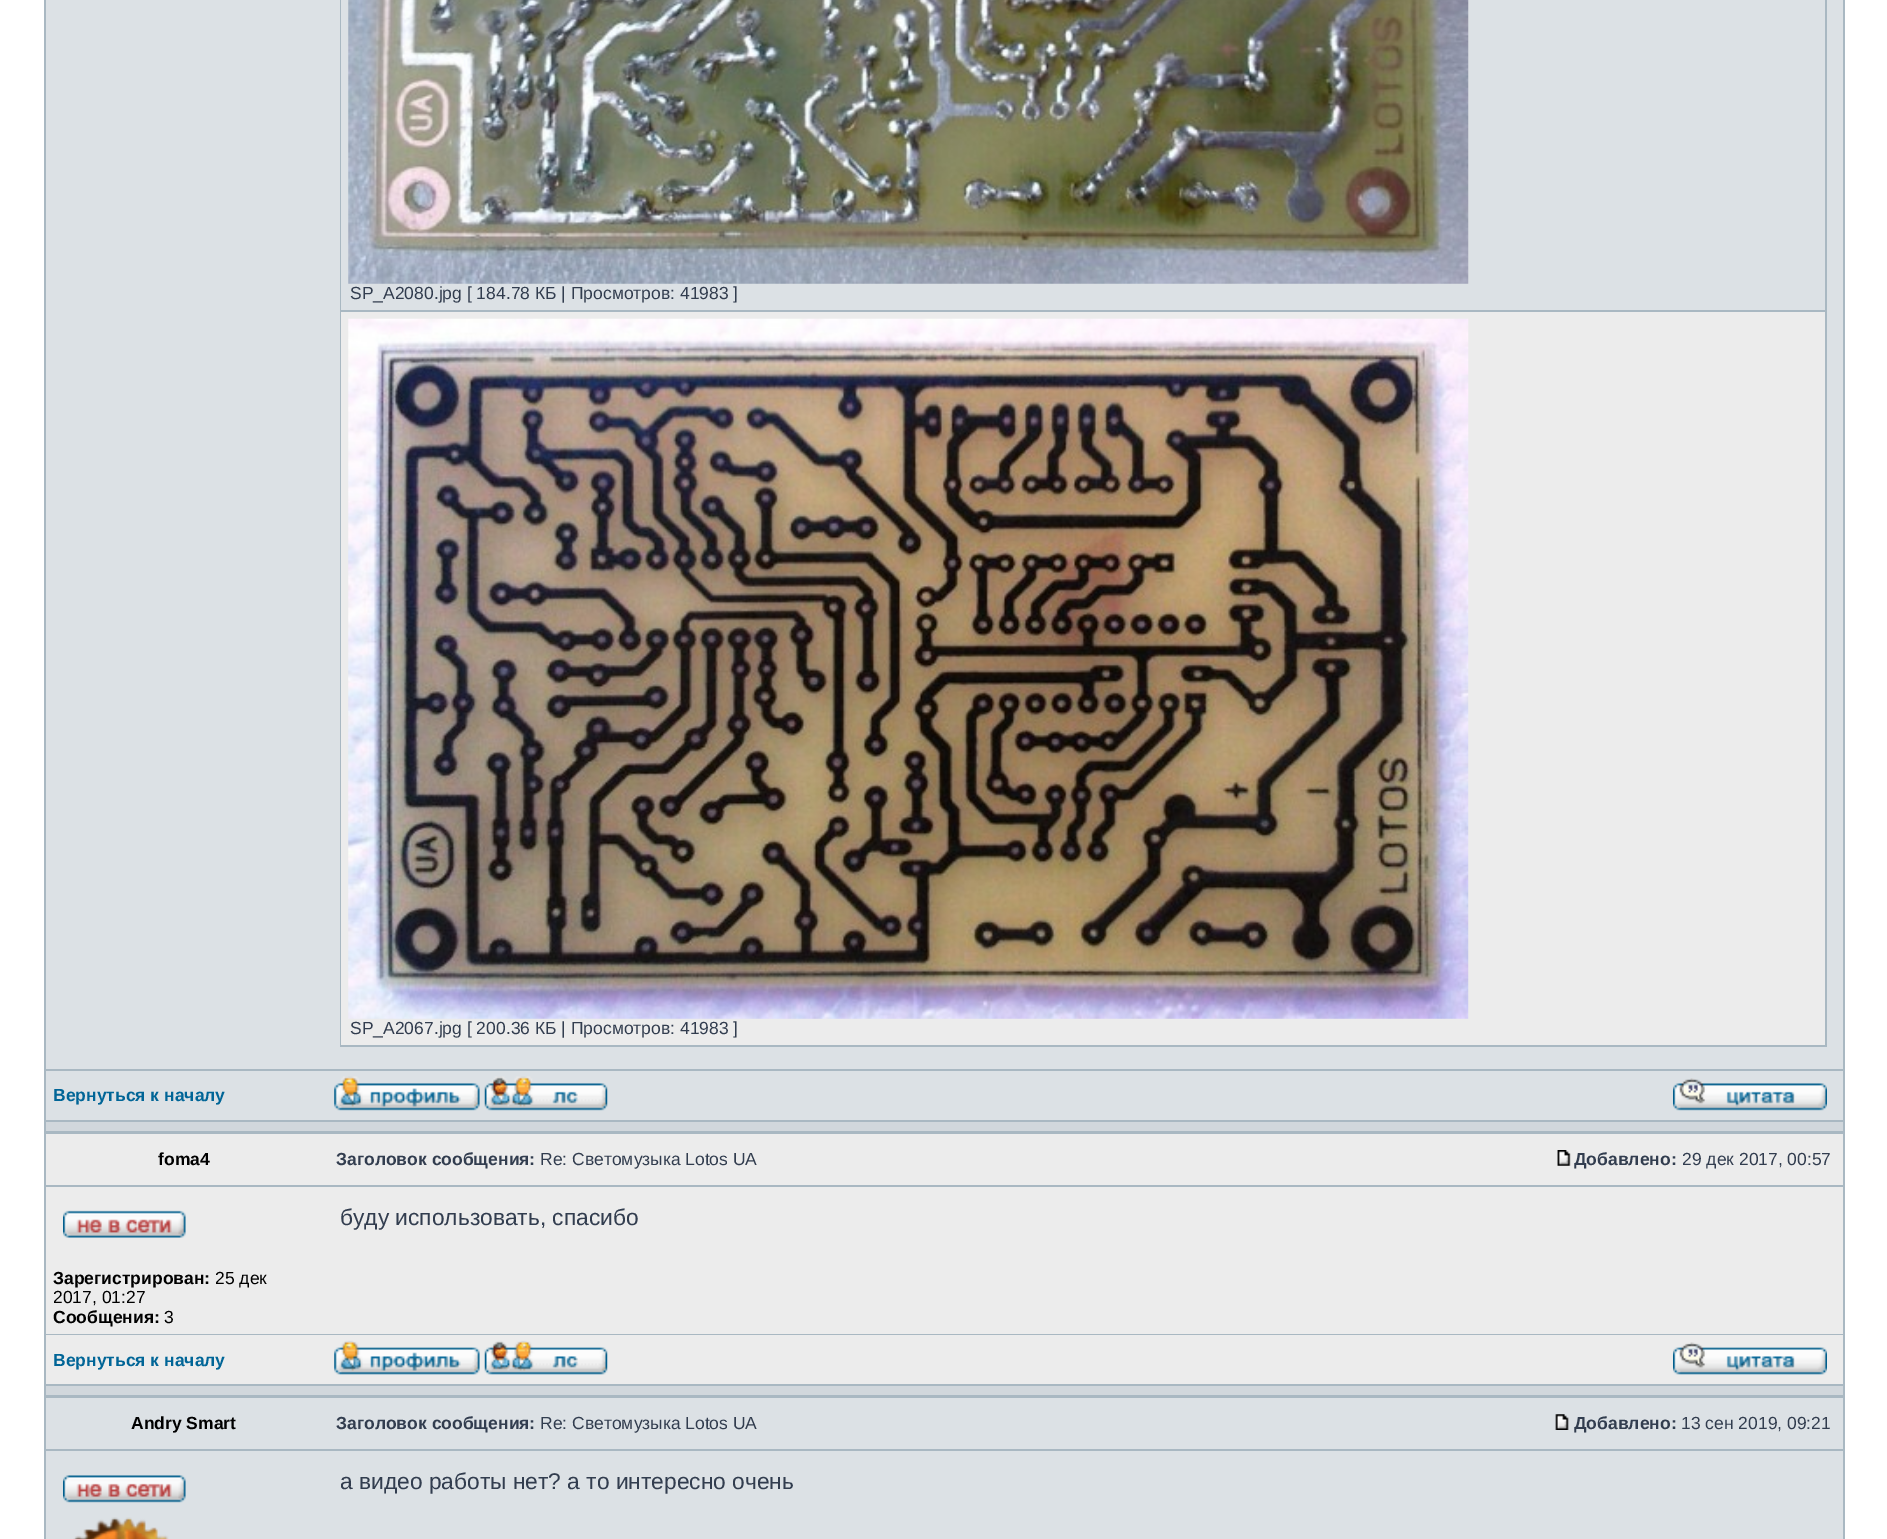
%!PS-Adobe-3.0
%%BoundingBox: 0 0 1887 1539
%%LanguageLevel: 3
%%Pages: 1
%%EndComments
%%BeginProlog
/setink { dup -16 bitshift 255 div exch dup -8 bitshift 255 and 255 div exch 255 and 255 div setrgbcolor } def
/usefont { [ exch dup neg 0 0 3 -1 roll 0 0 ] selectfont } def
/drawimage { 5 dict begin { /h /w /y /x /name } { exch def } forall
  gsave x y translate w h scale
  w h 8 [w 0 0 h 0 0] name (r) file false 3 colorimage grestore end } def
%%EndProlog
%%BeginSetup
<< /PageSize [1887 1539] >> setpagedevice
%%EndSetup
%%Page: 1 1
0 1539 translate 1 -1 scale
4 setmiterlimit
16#FFFFFF setink
0 0 1887 1539 rectfill
[
    [44 0 1801 1539 16#A9B8C2]
    [46 0 1797 1069 16#DCE1E5]
    [340 0 1487 1047 16#A9B8C2]
    [341 0 1484 310 16#DCE1E5]
] { aload pop setink rectfill } forall
(img1.raw) 348 0 1121 284 drawimage
/LiberationSans-Regular 17.5 usefont
16#323D4F setink
350 299 moveto (SP_A2080.jpg [ 184.78 КБ | Просмотров: 41983 ]) show
16#ECECEC setink
341 312 1484 733 rectfill
(img2.raw) 348 318 1121 701 drawimage
16#323D4F setink
350 1034 moveto (SP_A2067.jpg [ 200.36 КБ | Просмотров: 41983 ]) show
16#DCE1E5 setink
46 1071 1797 49 rectfill
/LiberationSans-Bold 17.5 usefont
16#006597 setink
53 1101 moveto (Вернуться к началу) show
(img3.raw) 334 1076 146 35 drawimage
(img4.raw) 484 1076 124 35 drawimage
(img5.raw) 1673 1078 154 33 drawimage
16#D1D7DC setink
46 1122 1797 9 rectfill
16#ECECEC setink
46 1134 1797 51 rectfill
16#000000 setink
158 1165 moveto (foma4) show
16#323D4F setink
336 1165 moveto (Заголовок сообщения:) show
/LiberationSans-Regular 17.5 usefont
540 1165 moveto (Re: Светомузыка Lotos UA) show
(img6.raw) 1557 1150 14 16 drawimage
/LiberationSans-Bold 17.5 usefont
1574 1165 moveto (Добавлено:) show
/LiberationSans-Regular 17.5 usefont
1682 1165 moveto (29 дек 2017, 00:57) show
16#ECECEC setink
46 1187 1797 147 rectfill
/LiberationSans-Regular 22.75 usefont
16#323D4F setink
340 1225 moveto (буду использовать, спасибо) show
(img7.raw) 63 1210 123 28 drawimage
/LiberationSans-Bold 17.5 usefont
16#000000 setink
53 1284 moveto (Зарегистрирован:) show
/LiberationSans-Regular 17.5 usefont
215 1284 moveto (25 дек) show
53 1303 moveto (2017, 01:27) show
/LiberationSans-Bold 17.5 usefont
53 1323 moveto (Сообщения:) show
/LiberationSans-Regular 17.5 usefont
164 1323 moveto (3) show
16#ECECEC setink
46 1335 1797 49 rectfill
/LiberationSans-Bold 17.5 usefont
16#006597 setink
53 1366 moveto (Вернуться к началу) show
(img8.raw) 334 1340 146 35 drawimage
(img9.raw) 484 1340 124 35 drawimage
(img10.raw) 1673 1342 154 33 drawimage
16#D1D7DC setink
46 1386 1797 9 rectfill
16#DCE1E5 setink
46 1398 1797 51 rectfill
16#000000 setink
131 1429 moveto (Andry Smart) show
16#323D4F setink
336 1429 moveto (Заголовок сообщения:) show
/LiberationSans-Regular 17.5 usefont
540 1429 moveto (Re: Светомузыка Lotos UA) show
(img11.raw) 1555 1414 14 16 drawimage
/LiberationSans-Bold 17.5 usefont
1574 1429 moveto (Добавлено:) show
/LiberationSans-Regular 17.5 usefont
1681 1429 moveto (13 сен 2019, 09:21) show
16#DCE1E5 setink
46 1451 1797 88 rectfill
(img12.raw) 63 1475 123 28 drawimage
(img13.raw) 73 1517 96 22 drawimage
/LiberationSans-Regular 22.75 usefont
16#323D4F setink
340 1489 moveto (а видео работы нет? а то интересно очень) show
showpage
%%EOF
